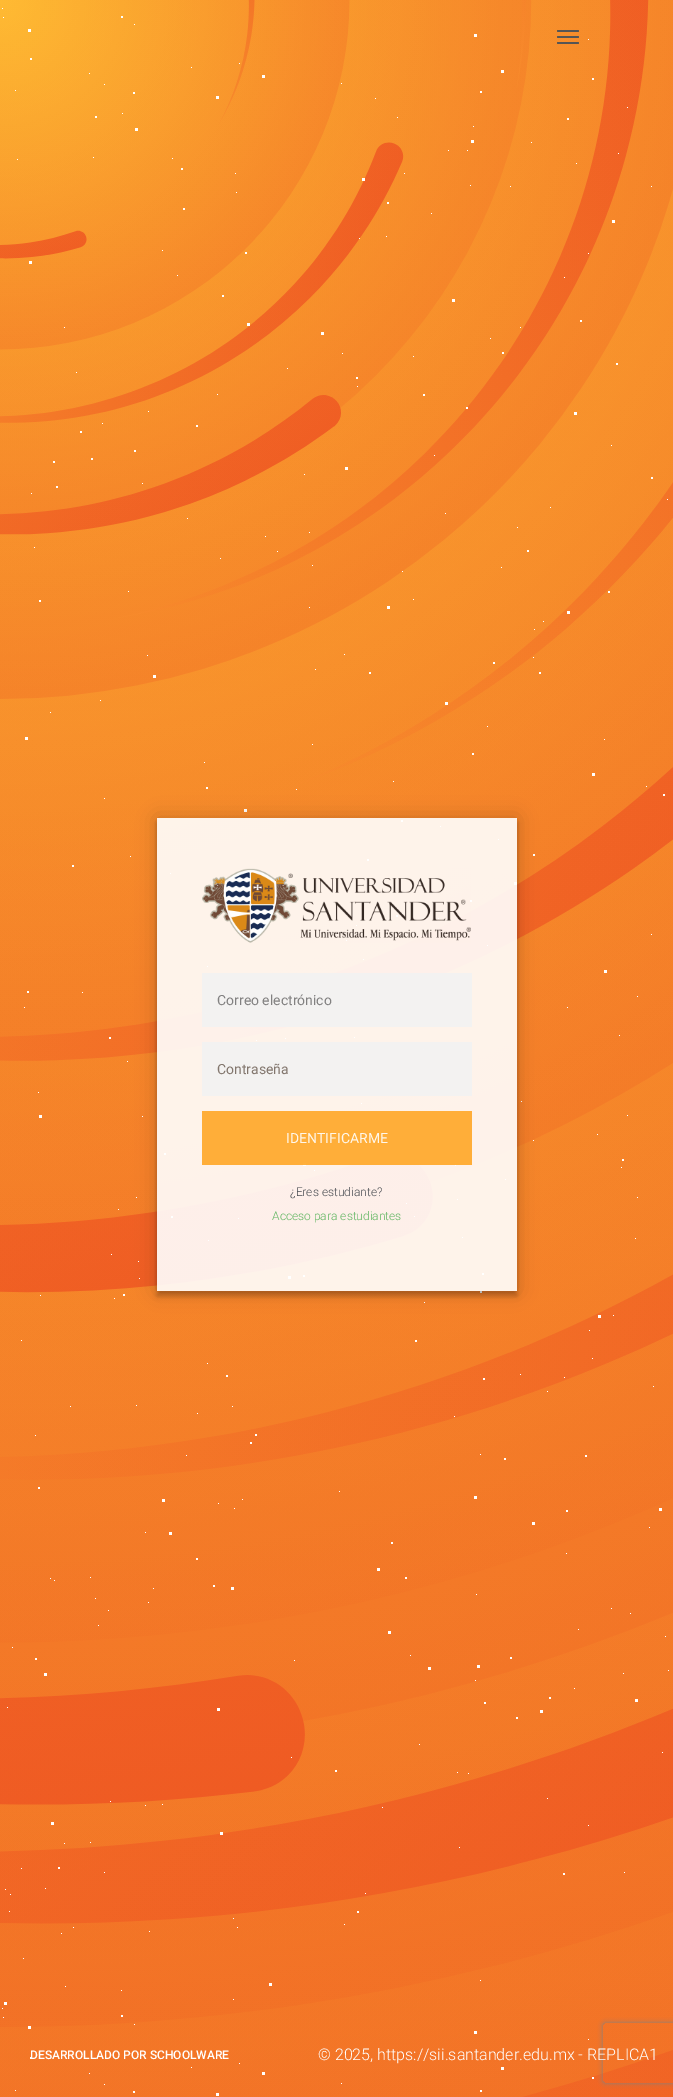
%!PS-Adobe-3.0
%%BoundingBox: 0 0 673 2097
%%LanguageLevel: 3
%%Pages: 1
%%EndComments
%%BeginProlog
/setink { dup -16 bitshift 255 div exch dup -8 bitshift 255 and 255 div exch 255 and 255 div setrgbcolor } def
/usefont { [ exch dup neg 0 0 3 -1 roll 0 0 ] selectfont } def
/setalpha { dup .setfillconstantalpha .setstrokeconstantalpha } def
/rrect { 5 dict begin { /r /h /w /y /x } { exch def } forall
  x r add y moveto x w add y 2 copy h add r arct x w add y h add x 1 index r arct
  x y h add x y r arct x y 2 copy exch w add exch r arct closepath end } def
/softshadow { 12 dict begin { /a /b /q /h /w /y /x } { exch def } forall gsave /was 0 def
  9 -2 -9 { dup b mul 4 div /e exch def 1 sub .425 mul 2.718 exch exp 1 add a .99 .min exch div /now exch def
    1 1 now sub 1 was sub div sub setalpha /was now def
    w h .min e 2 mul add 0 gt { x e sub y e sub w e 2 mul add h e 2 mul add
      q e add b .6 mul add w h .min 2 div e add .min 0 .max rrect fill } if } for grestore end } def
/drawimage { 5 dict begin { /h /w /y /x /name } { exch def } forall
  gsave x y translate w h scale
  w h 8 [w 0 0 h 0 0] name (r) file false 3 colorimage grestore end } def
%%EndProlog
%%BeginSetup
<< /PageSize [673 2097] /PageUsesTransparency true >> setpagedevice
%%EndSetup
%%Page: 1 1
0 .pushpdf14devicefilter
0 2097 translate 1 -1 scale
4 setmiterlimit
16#FFFFFF setink
0 0 673 2097 rectfill
(img1.raw) 0 0 673 2097 drawimage
[
    [21 1868 1 1 16#FFFFFF]
    [118 1209 1 1 16#FFFFFF]
    [624 1872 1 1 16#FFFFFF]
    [217 394 1 1 16#FFFFFF]
    [356 925 1 1 16#FFFFFF]
    [646 786 1 1 16#FFFFFF]
    [110 1801 1 1 16#FFFFFF]
    [470 185 1 1 16#FFFFFF]
    [589 1330 1 1 16#FFFFFF]
    [73 1927 1 1 16#FFFFFF]
    [111 1254 1 1 16#FFFFFF]
    [344 654 1 1 16#FFFFFF]
    [550 507 1 1 16#FFFFFF]
    [134 24 1 1 16#FFFFFF]
    [265 536 1 1 16#FFFFFF]
    [567 1007 1 1 16#FFFFFF]
    [148 411 1 1 16#FFFFFF]
    [501 567 1 1 16#FFFFFF]
    [604 739 1 1 16#FFFFFF]
    [621 1167 1 1 16#FFFFFF]
    [404 173 1 1 16#FFFFFF]
    [457 1199 1 1 16#FFFFFF]
    [613 1315 1 1 16#FFFFFF]
    [139 1278 1 1 16#FFFFFF]
    [531 142 1 1 16#FFFFFF]
    [637 996 1 1 16#FFFFFF]
    [517 527 1 1 16#FFFFFF]
    [431 213 1 1 16#FFFFFF]
    [239 63 1 1 16#FFFFFF]
    [104 798 1 1 16#FFFFFF]
    [90 1842 1 1 16#FFFFFF]
    [170 873 1 1 16#FFFFFF]
    [277 551 1 1 16#FFFFFF]
    [410 1655 1 1 16#FFFFFF]
    [611 445 1 1 16#FFFFFF]
    [145 1805 1 1 16#FFFFFF]
    [480 1980 1 1 16#FFFFFF]
    [423 1049 1 1 16#FFFFFF]
    [130 856 1 1 16#FFFFFF]
    [15 90 1 1 16#FFFFFF]
    [576 163 1 1 16#FFFFFF]
    [543 621 1 1 16#FFFFFF]
    [233 1918 1 1 16#FFFFFF]
    [40 1295 1 1 16#FFFFFF]
    [207 1363 1 1 16#FFFFFF]
    [24 1007 1 1 16#FFFFFF]
    [285 1038 1 1 16#FFFFFF]
    [623 1673 1 1 16#FFFFFF]
    [343 1119 1 1 16#FFFFFF]
    [434 455 1 1 16#FFFFFF]
    [98 1625 1 1 16#FFFFFF]
    [445 513 1 1 16#FFFFFF]
    [487 945 1 1 16#FFFFFF]
    [637 1197 1 1 16#FFFFFF]
    [635 1238 1 1 16#FFFFFF]
    [138 1261 1 1 16#FFFFFF]
    [76 372 1 1 16#FFFFFF]
    [235 173 1 1 16#FFFFFF]
    [187 518 1 1 16#FFFFFF]
    [104 84 1 1 16#FFFFFF]
    [341 83 1 1 16#FFFFFF]
    [393 781 1 1 16#FFFFFF]
    [533 657 1 1 16#FFFFFF]
    [314 1170 1 1 16#FFFFFF]
    [619 1035 1 1 16#FFFFFF]
    [653 1386 1 1 16#FFFFFF]
    [363 959 1 1 16#FFFFFF]
    [136 1405 1 1 16#FFFFFF]
    [651 934 1 1 16#FFFFFF]
    [357 386 1 1 16#FFFFFF]
    [487 726 1 1 16#FFFFFF]
    [237 1927 1 1 16#FFFFFF]
    [89 73 1 1 16#FFFFFF]
    [533 1140 1 1 16#FFFFFF]
    [31 493 1 1 16#FFFFFF]
    [462 1237 1 1 16#FFFFFF]
    [207 966 1 1 16#FFFFFF]
    [365 1893 1 1 16#FFFFFF]
    [45 1888 1 1 16#FFFFFF]
    [121 1990 1 1 16#FFFFFF]
    [361 1103 1 1 16#FFFFFF]
    [145 1532 1 1 16#FFFFFF]
    [34 547 1 1 16#FFFFFF]
    [564 1377 1 1 16#FFFFFF]
    [588 1825 1 1 16#FFFFFF]
    [386 236 1 1 16#FFFFFF]
    [566 1553 1 1 16#FFFFFF]
    [127 1061 1 1 16#FFFFFF]
    [38 1092 1 1 16#FFFFFF]
    [147 655 1 1 16#FFFFFF]
    [50 1578 1 1 16#FFFFFF]
    [339 1491 1 1 16#FFFFFF]
    [480 1454 1 1 16#FFFFFF]
    [312 565 1 1 16#FFFFFF]
    [93 157 1 1 16#FFFFFF]
    [236 192 1 1 16#FFFFFF]
    [468 1773 1 1 16#FFFFFF]
    [375 98 1 1 16#FFFFFF]
    [547 1798 1 1 16#FFFFFF]
    [7 1707 1 1 16#FFFFFF]
    [197 1413 1 1 16#FFFFFF]
    [459 1847 1 1 16#FFFFFF]
    [315 669 1 1 16#FFFFFF]
    [413 599 1 1 16#FFFFFF]
    [592 1358 1 1 16#FFFFFF]
    [142 1116 1 1 16#FFFFFF]
    [665 1636 1 1 16#FFFFFF]
    [177 275 1 1 16#FFFFFF]
    [438 918 1 1 16#FFFFFF]
    [287 368 1 1 16#FFFFFF]
    [649 1527 1 1 16#FFFFFF]
    [309 532 1 1 16#FFFFFF]
    [312 744 1 1 16#FFFFFF]
    [627 1115 1 1 16#FFFFFF]
    [294 1660 1 1 16#FFFFFF]
    [448 150 1 1 16#FFFFFF]
    [17 159 1 1 16#FFFFFF]
    [397 117 1 1 16#FFFFFF]
    [148 1602 1 1 16#FFFFFF]
    [108 1610 1 1 16#FFFFFF]
    [23 1958 1 1 16#FFFFFF]
    [440 826 1 1 16#FFFFFF]
    [413 356 1 1 16#FFFFFF]
    [668 1670 1 1 16#FFFFFF]
    [455 1165 1 1 16#FFFFFF]
    [5 1889 1 1 16#FFFFFF]
    [205 1013 1 1 16#FFFFFF]
    [162 1804 1 1 16#FFFFFF]
    [578 1629 1 1 16#FFFFFF]
    [473 126 1 1 16#FFFFFF]
    [476 1594 1 1 16#FFFFFF]
    [304 474 1 1 16#FFFFFF]
    [35 1435 1 1 16#FFFFFF]
    [100 700 1 1 16#FFFFFF]
    [564 277 1 1 16#FFFFFF]
    [419 1744 1 1 16#FFFFFF]
    [95 1598 1 1 16#FFFFFF]
    [574 1688 1 1 16#FFFFFF]
    [12 1647 1 1 16#FFFFFF]
    [402 571 1 1 16#FFFFFF]
    [65 1986 1 1 16#FFFFFF]
    [172 158 1 1 16#FFFFFF]
    [498 839 1 1 16#FFFFFF]
    [359 238 1 1 16#FFFFFF]
    [291 1757 1 1 16#FFFFFF]
    [208 1240 1 1 16#FFFFFF]
    [64 327 1 1 16#FFFFFF]
    [204 762 1 1 16#FFFFFF]
    [344 1924 1 1 16#FFFFFF]
    [10 1894 1 1 16#FFFFFF]
    [667 499 1 1 16#FFFFFF]
    [102 423 1 1 16#FFFFFF]
    [336 1000 1 1 16#FFFFFF]
    [510 186 1 1 16#FFFFFF]
    [234 1508 1 1 16#FFFFFF]
    [82 992 1 1 16#FFFFFF]
    [534 629 1 1 16#FFFFFF]
    [406 1203 1 1 16#FFFFFF]
    [547 1391 1 1 16#FFFFFF]
    [611 1608 1 1 16#FFFFFF]
    [136 1197 1 1 16#FFFFFF]
    [114 1298 1 1 16#FFFFFF]
    [630 1613 1 1 16#FFFFFF]
    [662 1752 1 1 16#FFFFFF]
    [142 483 1 1 16#FFFFFF]
    [128 591 1 1 16#FFFFFF]
    [299 1190 1 1 16#FFFFFF]
    [220 558 1 1 16#FFFFFF]
    [256 1040 1 1 16#FFFFFF]
    [218 1503 1 1 16#FFFFFF]
    [346 940 1 1 16#FFFFFF]
    [64 1843 1 1 16#FFFFFF]
    [252 1078 1 1 16#FFFFFF]
    [21 1340 1 1 16#FFFFFF]
    [597 1134 1 1 16#FFFFFF]
    [424 1302 1 1 16#FFFFFF]
    [104 1872 1 1 16#FFFFFF]
    [9 1911 1 1 16#FFFFFF]
    [588 39 1 1 16#FFFFFF]
    [232 1406 1 1 16#FFFFFF]
    [467 150 1 1 16#FFFFFF]
    [382 1807 1 1 16#FFFFFF]
    [153 1588 1 1 16#FFFFFF]
    [309 607 1 1 16#FFFFFF]
    [520 327 1 1 16#FFFFFF]
    [122 113 1 1 16#FFFFFF]
    [186 1455 1 1 16#FFFFFF]
    [162 250 1 1 16#FFFFFF]
    [242 1499 1 1 16#FFFFFF]
    [233 1999 1 1 16#FFFFFF]
    [414 1216 1 1 16#FFFFFF]
    [457 1772 1 1 16#FFFFFF]
    [90 1577 1 1 16#FFFFFF]
    [50 712 1 1 16#FFFFFF]
    [521 1101 1 1 16#FFFFFF]
    [342 353 1 1 16#FFFFFF]
    [454 1416 1 1 16#FFFFFF]
    [296 789 1 1 16#FFFFFF]
    [238 1218 1 1 16#FFFFFF]
    [354 1037 1 1 16#FFFFFF]
    [505 1179 1 1 16#FFFFFF]
    [191 67 1 1 16#FFFFFF]
    [588 253 1 1 16#FFFFFF]
    [490 338 1 1 16#FFFFFF]
    [627 107 1 1 16#FFFFFF]
    [2 8 1 1 16#FFFFFF]
    [54 1580 1 1 16#FFFFFF]
    [618 153 1 1 16#FFFFFF]
    [61 1933 1 1 16#FFFFFF]
    [3 17 1 1 16#FFFFFF]
    [520 1374 1 1 16#FFFFFF]
    [475 1680 1 1 16#FFFFFF]
    [651 186 1 1 16#FFFFFF]
    [149 1931 1 1 16#FFFFFF]
    [360 1145 1 1 16#FFFFFF]
    [70 1406 1 1 16#FFFFFF]
    [134 2024 1 1 16#FFFFFF]
    [239 2063 1 1 16#FFFFFF]
    [15 2090 1 1 16#FFFFFF]
    [104 2084 1 1 16#FFFFFF]
    [341 2083 1 1 16#FFFFFF]
    [89 2073 1 1 16#FFFFFF]
    [588 2039 1 1 16#FFFFFF]
    [191 2067 1 1 16#FFFFFF]
    [2 2008 1 1 16#FFFFFF]
    [3 2017 1 1 16#FFFFFF]
    [549 1697 2 2 16#FFFFFF]
    [616 363 2 2 16#FFFFFF]
    [27 991 2 2 16#FFFFFF]
    [38 1487 2 2 16#FFFFFF]
    [472 753 2 2 16#FFFFFF]
    [466 407 2 2 16#FFFFFF]
    [196 425 2 2 16#FFFFFF]
    [504 1458 2 2 16#FFFFFF]
    [401 820 2 2 16#FFFFFF]
    [30 58 2 2 16#FFFFFF]
    [335 1770 2 2 16#FFFFFF]
    [539 672 2 2 16#FFFFFF]
    [356 377 2 2 16#FFFFFF]
    [121 16 2 2 16#FFFFFF]
    [213 1585 2 2 16#FFFFFF]
    [80 431 2 2 16#FFFFFF]
    [391 1542 2 2 16#FFFFFF]
    [608 591 2 2 16#FFFFFF]
    [566 1510 2 2 16#FFFFFF]
    [303 1275 2 2 16#FFFFFF]
    [164 1153 2 2 16#FFFFFF]
    [250 1442 2 2 16#FFFFFF]
    [622 1159 2 2 16#FFFFFF]
    [91 458 2 2 16#FFFFFF]
    [482 1273 2 2 16#FFFFFF]
    [585 1455 2 2 16#FFFFFF]
    [527 550 2 2 16#FFFFFF]
    [53 461 2 2 16#FFFFFF]
    [133 92 2 2 16#FFFFFF]
    [72 865 2 2 16#FFFFFF]
    [493 662 2 2 16#FFFFFF]
    [206 787 2 2 16#FFFFFF]
    [423 394 2 2 16#FFFFFF]
    [109 1037 2 2 16#FFFFFF]
    [396 915 2 2 16#FFFFFF]
    [516 1717 2 2 16#FFFFFF]
    [134 450 2 2 16#FFFFFF]
    [369 672 2 2 16#FFFFFF]
    [567 118 2 2 16#FFFFFF]
    [226 1375 2 2 16#FFFFFF]
    [484 1702 2 2 16#FFFFFF]
    [171 1216 2 2 16#FFFFFF]
    [58 1867 2 2 16#FFFFFF]
    [56 486 2 2 16#FFFFFF]
    [387 202 2 2 16#FFFFFF]
    [592 78 2 2 16#FFFFFF]
    [367 859 2 2 16#FFFFFF]
    [483 1378 2 2 16#FFFFFF]
    [580 320 2 2 16#FFFFFF]
    [39 600 2 2 16#FFFFFF]
    [95 116 2 2 16#FFFFFF]
    [123 1294 2 2 16#FFFFFF]
    [255 1434 2 2 16#FFFFFF]
    [510 1657 2 2 16#FFFFFF]
    [405 1577 2 2 16#FFFFFF]
    [183 208 2 2 16#FFFFFF]
    [357 1911 2 2 16#FFFFFF]
    [35 1658 2 2 16#FFFFFF]
    [181 168 2 2 16#FFFFFF]
    [663 794 2 2 16#FFFFFF]
    [222 295 2 2 16#FFFFFF]
    [196 1558 2 2 16#FFFFFF]
    [533 854 2 2 16#FFFFFF]
    [245 252 2 2 16#FFFFFF]
    [651 477 2 2 16#FFFFFF]
    [563 1873 2 2 16#FFFFFF]
    [415 1340 2 2 16#FFFFFF]
    [502 352 2 2 16#FFFFFF]
    [470 900 2 2 16#FFFFFF]
    [480 91 2 2 16#FFFFFF]
    [480 1291 2 2 16#FFFFFF]
    [30 2057 2 2 16#FFFFFF]
    [121 2015 2 2 16#FFFFFF]
    [133 2091 2 2 16#FFFFFF]
    [592 2077 2 2 16#FFFFFF]
    [480 2090 2 2 16#FFFFFF]
    [303 1163 3 3 16#FFFFFF]
    [162 1499 3 3 16#FFFFFF]
    [574 412 3 3 16#FFFFFF]
    [612 220 3 3 16#FFFFFF]
    [445 702 3 3 16#FFFFFF]
    [216 96 3 3 16#FFFFFF]
    [29 261 3 3 16#FFFFFF]
    [635 1699 3 3 16#FFFFFF]
    [51 1822 3 3 16#FFFFFF]
    [388 1631 3 3 16#FFFFFF]
    [231 1587 3 3 16#FFFFFF]
    [345 467 3 3 16#FFFFFF]
    [474 34 3 3 16#FFFFFF]
    [220 1832 3 3 16#FFFFFF]
    [39 1115 3 3 16#FFFFFF]
    [244 809 3 3 16#FFFFFF]
    [477 1665 3 3 16#FFFFFF]
    [135 128 3 3 16#FFFFFF]
    [428 1667 3 3 16#FFFFFF]
    [362 178 3 3 16#FFFFFF]
    [44 1673 3 3 16#FFFFFF]
    [377 1568 3 3 16#FFFFFF]
    [514 882 3 3 16#FFFFFF]
    [604 970 3 3 16#FFFFFF]
    [474 1496 3 3 16#FFFFFF]
    [598 1315 3 3 16#FFFFFF]
    [321 332 3 3 16#FFFFFF]
    [567 611 3 3 16#FFFFFF]
    [471 140 3 3 16#FFFFFF]
    [4 2002 3 3 16#FFFFFF]
    [387 606 3 3 16#FFFFFF]
    [592 773 3 3 16#FFFFFF]
    [28 29 3 3 16#FFFFFF]
    [247 323 3 3 16#FFFFFF]
    [501 70 3 3 16#FFFFFF]
    [169 1532 3 3 16#FFFFFF]
    [532 1522 3 3 16#FFFFFF]
    [269 1983 3 3 16#FFFFFF]
    [262 75 3 3 16#FFFFFF]
    [659 1508 3 3 16#FFFFFF]
    [153 675 3 3 16#FFFFFF]
    [217 1708 3 3 16#FFFFFF]
    [540 1710 3 3 16#FFFFFF]
    [25 737 3 3 16#FFFFFF]
    [452 299 3 3 16#FFFFFF]
    [288 1276 3 3 16#FFFFFF]
    [216 2093 3 3 16#FFFFFF]
    [474 2031 3 3 16#FFFFFF]
    [28 2026 3 3 16#FFFFFF]
    [501 2067 3 3 16#FFFFFF]
    [262 2072 3 3 16#FFFFFF]
] { aload pop setink rectfill } forall
16#555555 setink
557 30 22 2 1 rrect fill
557 36 22 2 1 rrect fill
557 42 22 2 1 rrect fill
gsave
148 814 moveto 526 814 lineto 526 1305 lineto 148 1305 lineto closepath 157 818 moveto 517 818 lineto 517 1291 lineto 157 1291 lineto closepath eoclip newpath
16#000000 setink
157 823 360 473 0 2.5 0.22 softshadow
grestore
gsave
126 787 moveto 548 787 lineto 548 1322 lineto 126 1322 lineto closepath 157 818 moveto 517 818 lineto 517 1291 lineto 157 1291 lineto closepath eoclip newpath
16#000000 setink
157 818 360 473 0 10 0.18 softshadow
grestore
0.9 setalpha
16#FFFFFF setink
157 818 360 473 rectfill
1 setalpha
(img2.raw) 202 868 269 75 drawimage
0.9 setalpha
16#F2F2F2 setink
202 973 270 54 rectfill
/Roboto-Regular 14 usefont
1 setalpha
16#828181 setink
217 1005 moveto (Correo electrónico) show
0.9 setalpha
16#F2F2F2 setink
202 1042 270 54 rectfill
1 setalpha
16#82766D setink
217 1074 moveto (Contraseña) show
0.9 setalpha
16#FFA726 setink
202 1111 270 54 rectfill
1 setalpha
16#FFF7EB setink
286 1143 moveto (IDENTIFICARME) show
/Roboto-Light 12 usefont
16#484C51 setink
290 1196 moveto (¿Eres estudiante?) show
16#5EB55F setink
272 1220 moveto (Acceso para estudiantes) show
gsave
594 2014 moveto 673 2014 lineto 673 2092 lineto 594 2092 lineto closepath 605 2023 moveto 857 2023 lineto 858 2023 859 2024 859 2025 curveto 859 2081 lineto 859 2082 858 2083 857 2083 curveto 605 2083 lineto 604 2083 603 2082 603 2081 curveto 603 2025 lineto 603 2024 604 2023 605 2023 curveto closepath eoclip newpath
16#808080 setink
603 2023 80 60 2 2.5 1 softshadow
grestore
/Roboto-Medium 12 usefont
16#FFFFFF setink
30 2059 moveto (DESARROLLADO POR SCHOOLWARE) show
/Roboto-Light 16 usefont
318 2060 moveto (© 2025, https://sii.santander.edu.mx - REPLICA1) show
.poppdf14devicefilter showpage
%%EOF
